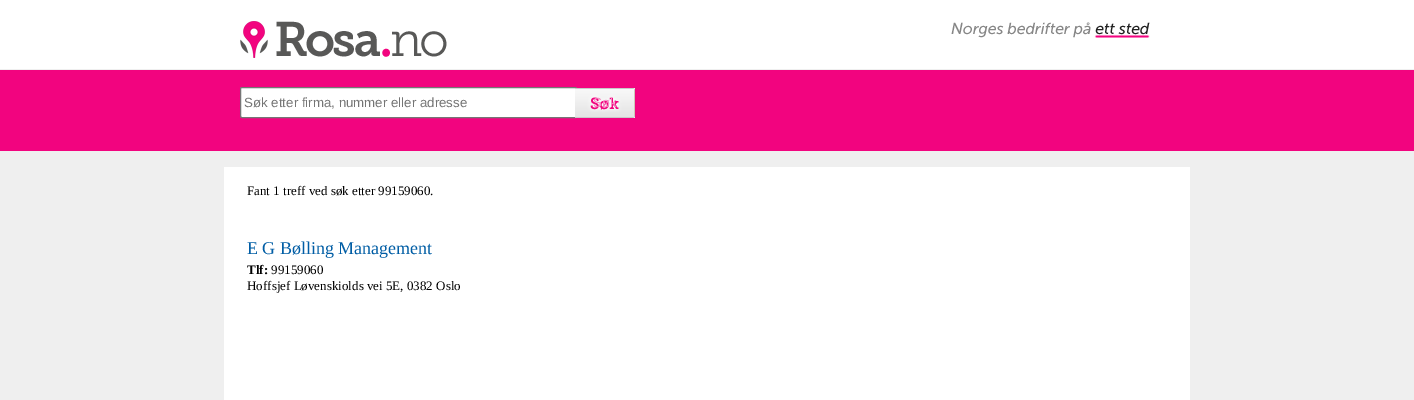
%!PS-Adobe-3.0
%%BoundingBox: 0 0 1414 400
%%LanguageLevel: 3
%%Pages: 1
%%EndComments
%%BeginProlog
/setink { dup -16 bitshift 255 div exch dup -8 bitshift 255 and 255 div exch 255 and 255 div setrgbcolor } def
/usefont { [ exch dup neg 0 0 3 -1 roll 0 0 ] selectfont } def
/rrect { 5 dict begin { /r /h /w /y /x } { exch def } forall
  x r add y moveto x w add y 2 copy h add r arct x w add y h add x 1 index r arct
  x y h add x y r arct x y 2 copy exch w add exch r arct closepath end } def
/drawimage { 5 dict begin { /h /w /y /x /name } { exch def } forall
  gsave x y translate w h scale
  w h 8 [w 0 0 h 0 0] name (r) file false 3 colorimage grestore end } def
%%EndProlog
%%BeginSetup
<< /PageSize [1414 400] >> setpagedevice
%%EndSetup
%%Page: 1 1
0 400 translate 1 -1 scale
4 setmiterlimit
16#EFEFEF setink
0 0 1414 400 rectfill
16#FFFFFF setink
0 0 1414 69 rectfill
(img1.raw) 240 21 207 37 drawimage
(img2.raw) 951 22 199 16 drawimage
16#F2047F setink
0 70 1414 81 rectfill
16#FFFFFF setink
240.5 87.5 336 30 1.5 rrect gsave fill grestore
16#767676 setink
stroke
/LiberationSans-Regular 13.3 usefont
16#757575 setink
244 107 moveto (Søk etter firma, nummer eller adresse) show
(img3.raw) 575 88 60 30 drawimage
16#F58AC2 setink
593 107 moveto (Søk) show
16#FFFFFF setink
224 167 966 233 rectfill
/LiberationSerif-Regular 13 usefont
16#000000 setink
247 195 moveto (Fant 1 treff ved søk etter 99159060.) show
/LiberationSerif-Regular 18 usefont
16#005DA5 setink
247 254 moveto (E G Bølling Management) show
/LiberationSerif-Bold 13 usefont
16#000000 setink
247 274 moveto (Tlf:) show
/LiberationSerif-Regular 13 usefont
271 274 moveto (99159060) show
247 290 moveto (Hoffsjef Løvenskiolds vei 5E, 0382 Oslo) show
showpage
%%EOF
